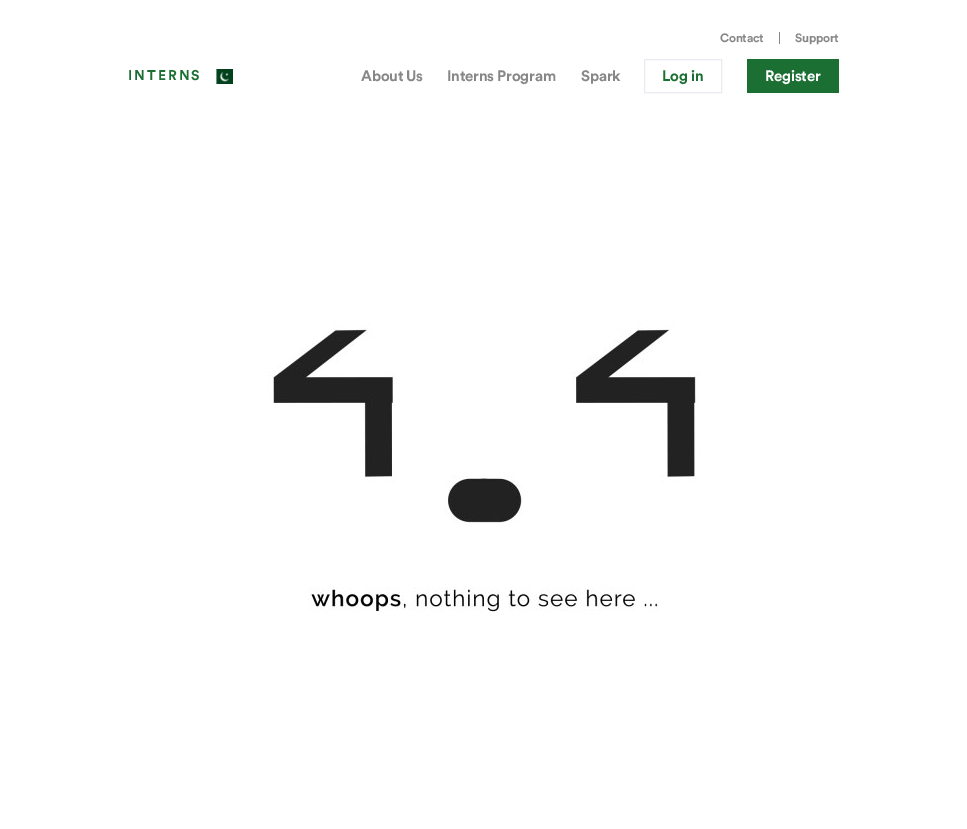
%!PS-Adobe-3.0
%%BoundingBox: 0 0 967 829
%%LanguageLevel: 3
%%Pages: 1
%%EndComments
%%BeginProlog
/setink { dup -16 bitshift 255 div exch dup -8 bitshift 255 and 255 div exch 255 and 255 div setrgbcolor } def
/usefont { [ exch dup neg 0 0 3 -1 roll 0 0 ] selectfont } def
/drawimage { 5 dict begin { /h /w /y /x /name } { exch def } forall
  gsave x y translate w h scale
  w h 8 [w 0 0 h 0 0] name (r) file false 3 colorimage grestore end } def
%%EndProlog
%%BeginSetup
<< /PageSize [967 829] >> setpagedevice
%%EndSetup
%%Page: 1 1
0 829 translate 1 -1 scale
4 setmiterlimit
16#FFFFFF setink
0 0 967 829 rectfill
16#878787 setink
779 32 1 12 rectfill
/Circular-Bold 12 usefont
720 42 moveto -0.25 0 (Contact) ashow
795 42 moveto -0.25 0 (Support) ashow
(img1.raw) 216 69 17 15 drawimage
/Circular-Bold 14 usefont
16#1C6F33 setink
128 80 moveto 2 0 (INTERNS) ashow
/Circular-Bold 15 usefont
16#878787 setink
361 81 moveto -0.25 0 (About Us) ashow
447 81 moveto -0.25 0 (Interns Program) ashow
581 81 moveto -0.25 0 (Spark) ashow
16#E9ECF1 setink
644.5 59.5 77 33 rectstroke
16#1C6F33 setink
662 81 moveto -0.25 0 (Log in) ashow
747 59 92 34 rectfill
16#FFFFFF setink
765 81 moveto -0.25 0 (Register) ashow
(img2.raw) 268 323 432 289 drawimage
showpage
%%EOF
